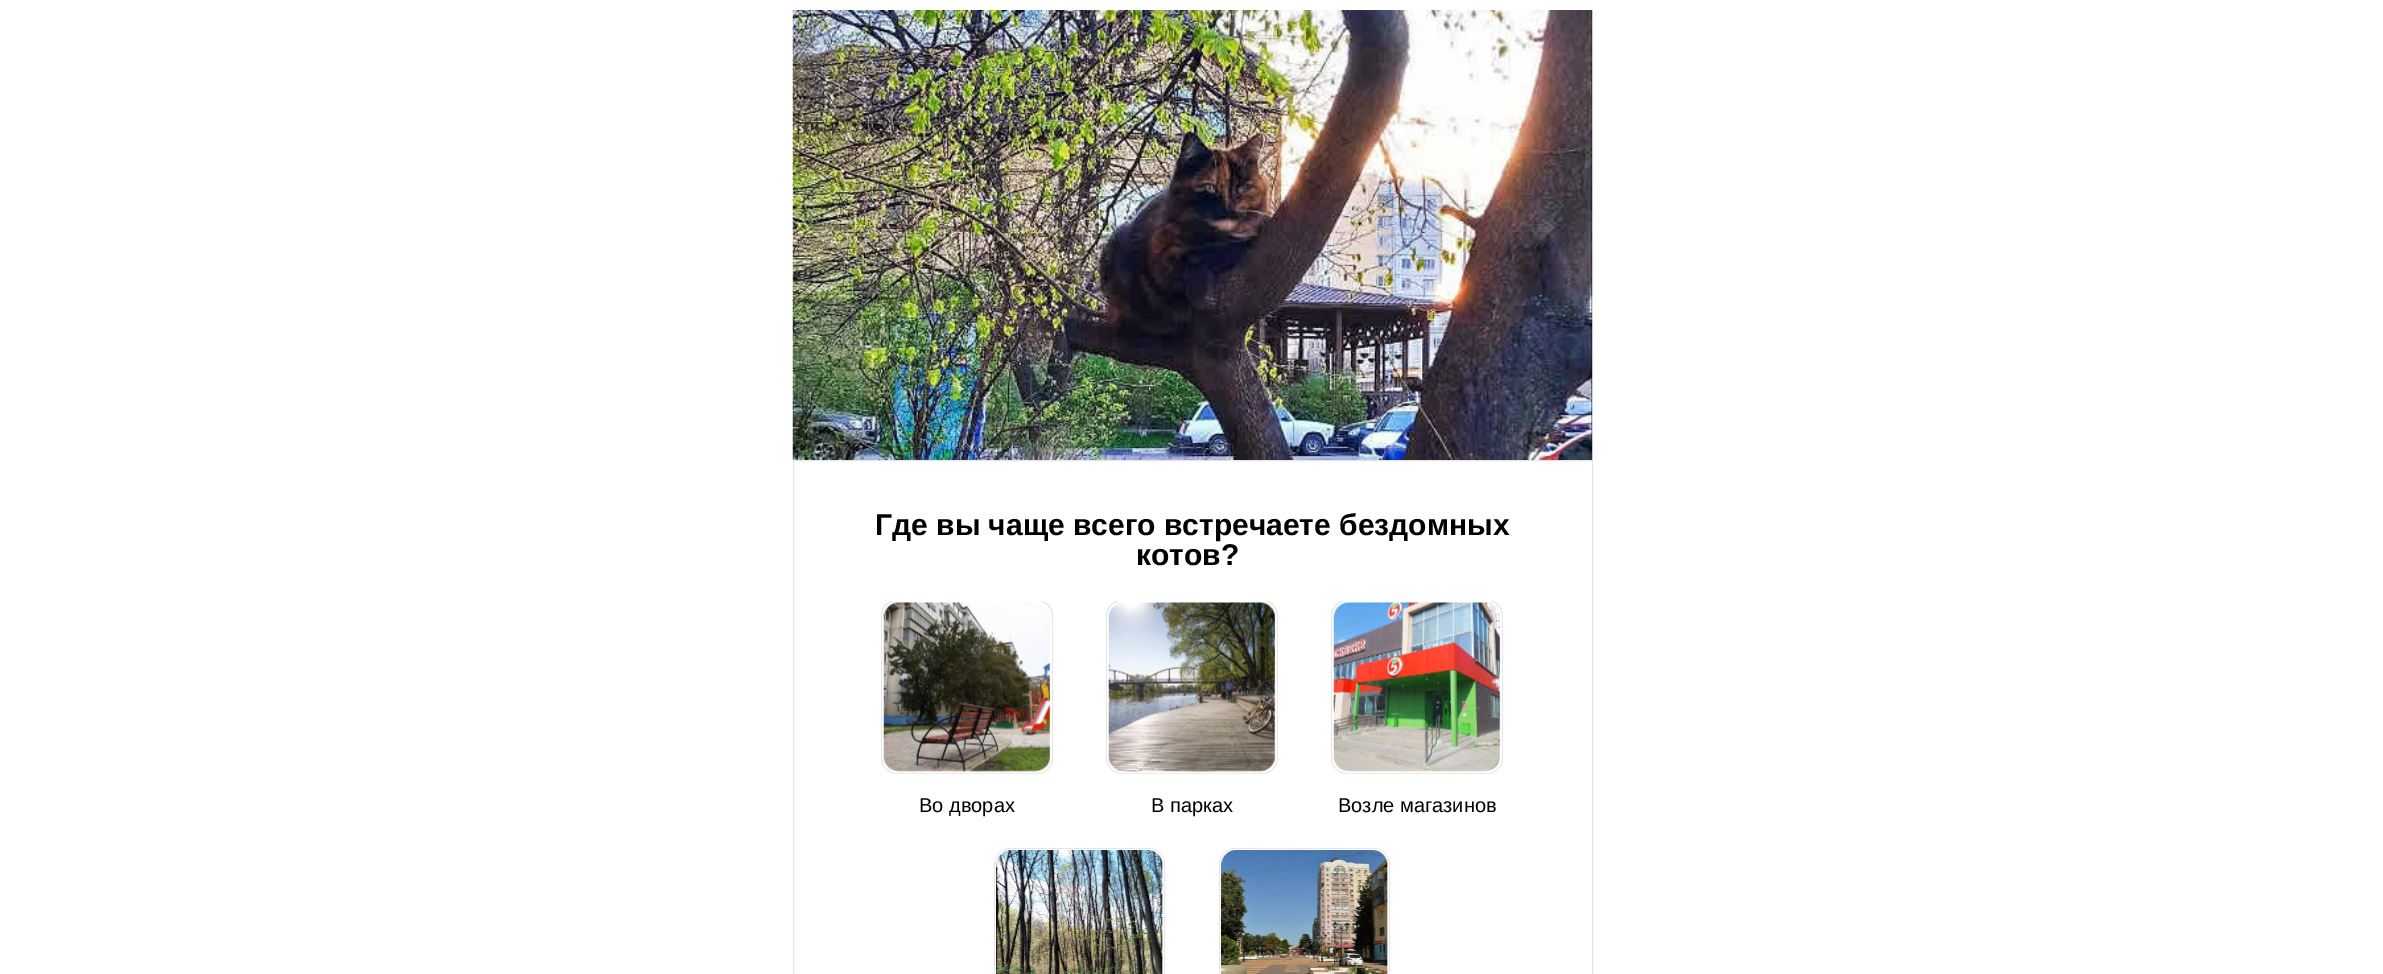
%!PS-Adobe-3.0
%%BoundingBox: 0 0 2383 974
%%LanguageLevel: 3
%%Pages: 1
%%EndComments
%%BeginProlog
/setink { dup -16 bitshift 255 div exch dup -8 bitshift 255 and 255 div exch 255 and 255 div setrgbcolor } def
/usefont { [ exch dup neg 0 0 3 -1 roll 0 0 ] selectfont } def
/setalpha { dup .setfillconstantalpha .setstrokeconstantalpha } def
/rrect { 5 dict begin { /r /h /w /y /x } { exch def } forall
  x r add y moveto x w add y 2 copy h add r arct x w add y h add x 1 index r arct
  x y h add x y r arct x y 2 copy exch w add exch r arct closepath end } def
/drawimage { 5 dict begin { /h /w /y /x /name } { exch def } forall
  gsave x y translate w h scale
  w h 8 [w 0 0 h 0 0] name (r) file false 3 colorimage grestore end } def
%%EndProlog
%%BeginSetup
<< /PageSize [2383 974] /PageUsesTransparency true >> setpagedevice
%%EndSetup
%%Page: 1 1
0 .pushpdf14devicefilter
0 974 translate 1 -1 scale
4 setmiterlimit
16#FFFFFF setink
0 0 2383 974 rectfill
(img1.raw) 792 10 801 450 drawimage
16#E6E6E6 setink
793.5 460.5 799 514 rectstroke
/LiberationSans-Bold 30 usefont
16#000000 setink
875 535 moveto (Где вы чаще всего встречаете бездомных) show
1136 565 moveto (котов?) show
16#E6E6E6 setink
897 601 moveto 889 601 882 608 882 616 curveto 882 758 lineto 882 766 889 773 897 773 curveto 1037 773 lineto 1045 773 1052 766 1052 758 curveto 1052 616 lineto 1052 608 1045 601 1037 601 curveto 1043 601 lineto 1049 603 1053 609 1053 616 curveto 1053 758 lineto 1053 767 1046 774 1037 774 curveto 897 774 lineto 888 774 881 767 881 758 curveto 881 616 lineto 881 609 885 603 891 601 curveto closepath fill
0.86 setalpha
16#FFFFFF setink
883.5 601.5 167 171 14.5 rrect stroke
1 setalpha
(img2.raw) 883 602 168 170 drawimage
/LiberationSans-Regular 20 usefont
16#000000 setink
919 812 moveto (Во дворах) show
16#E6E6E6 setink
1122 601 moveto 1114 601 1107 608 1107 616 curveto 1107 758 lineto 1107 766 1114 773 1122 773 curveto 1262 773 lineto 1270 773 1277 766 1277 758 curveto 1277 616 lineto 1277 608 1270 601 1262 601 curveto 1268 601 lineto 1274 603 1278 609 1278 616 curveto 1278 758 lineto 1278 767 1271 774 1262 774 curveto 1122 774 lineto 1113 774 1106 767 1106 758 curveto 1106 616 lineto 1106 609 1110 603 1116 601 curveto closepath fill
0.86 setalpha
16#FFFFFF setink
1108.5 601.5 167 171 14.5 rrect stroke
1 setalpha
(img3.raw) 1108 602 168 170 drawimage
16#000000 setink
1151 812 moveto (В парках) show
16#E6E6E6 setink
1347 601 moveto 1339 601 1332 608 1332 616 curveto 1332 758 lineto 1332 766 1339 773 1347 773 curveto 1487 773 lineto 1495 773 1502 766 1502 758 curveto 1502 616 lineto 1502 608 1495 601 1487 601 curveto 1493 601 lineto 1499 603 1503 609 1503 616 curveto 1503 758 lineto 1503 767 1496 774 1487 774 curveto 1347 774 lineto 1338 774 1331 767 1331 758 curveto 1331 616 lineto 1331 609 1335 603 1341 601 curveto closepath fill
0.86 setalpha
16#FFFFFF setink
1333.5 601.5 167 171 14.5 rrect stroke
1 setalpha
(img4.raw) 1333 602 168 170 drawimage
16#000000 setink
1338 812 moveto (Возле магазинов) show
16#E6E6E6 setink
994.5 848.5 170 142 15.5 rrect stroke
0.86 setalpha
16#FFFFFF setink
995.5 849.5 168 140 14.5 rrect stroke
1 setalpha
16#F5F5F5 setink
996 850 167 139 15 rrect fill
(img5.raw) 996 850 167 124 drawimage
16#E6E6E6 setink
1219.5 848.5 170 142 15.5 rrect stroke
0.86 setalpha
16#FFFFFF setink
1220.5 849.5 168 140 14.5 rrect stroke
1 setalpha
16#F5F5F5 setink
1221 850 167 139 15 rrect fill
(img6.raw) 1221 850 167 124 drawimage
.poppdf14devicefilter showpage
%%EOF
